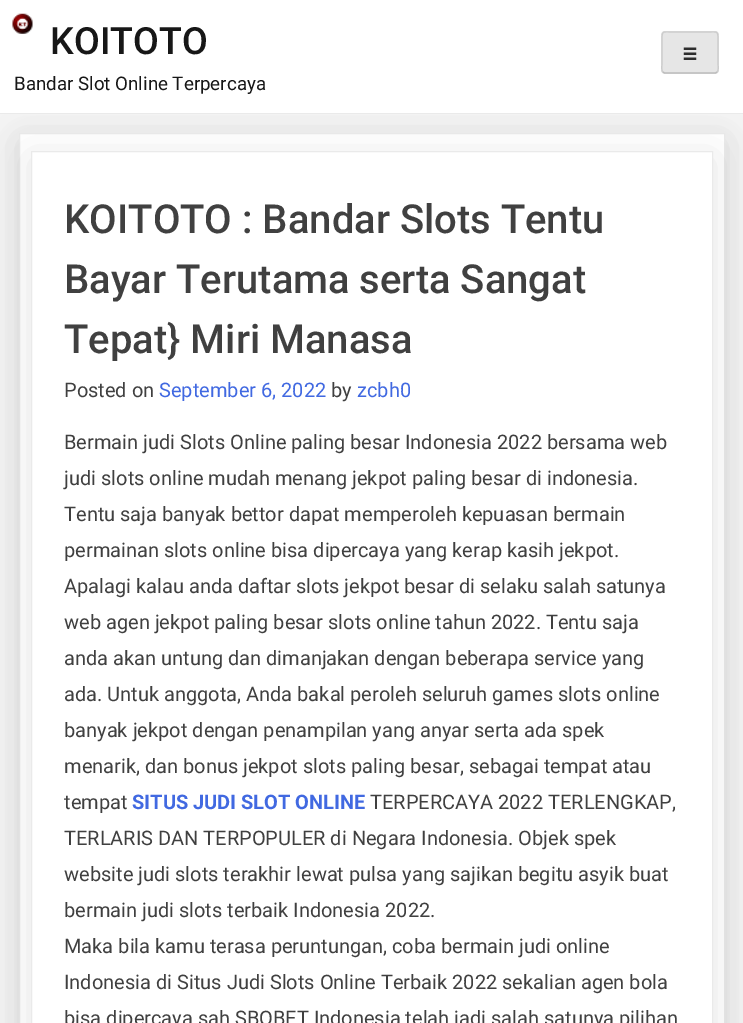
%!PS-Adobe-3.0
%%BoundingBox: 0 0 743 1023
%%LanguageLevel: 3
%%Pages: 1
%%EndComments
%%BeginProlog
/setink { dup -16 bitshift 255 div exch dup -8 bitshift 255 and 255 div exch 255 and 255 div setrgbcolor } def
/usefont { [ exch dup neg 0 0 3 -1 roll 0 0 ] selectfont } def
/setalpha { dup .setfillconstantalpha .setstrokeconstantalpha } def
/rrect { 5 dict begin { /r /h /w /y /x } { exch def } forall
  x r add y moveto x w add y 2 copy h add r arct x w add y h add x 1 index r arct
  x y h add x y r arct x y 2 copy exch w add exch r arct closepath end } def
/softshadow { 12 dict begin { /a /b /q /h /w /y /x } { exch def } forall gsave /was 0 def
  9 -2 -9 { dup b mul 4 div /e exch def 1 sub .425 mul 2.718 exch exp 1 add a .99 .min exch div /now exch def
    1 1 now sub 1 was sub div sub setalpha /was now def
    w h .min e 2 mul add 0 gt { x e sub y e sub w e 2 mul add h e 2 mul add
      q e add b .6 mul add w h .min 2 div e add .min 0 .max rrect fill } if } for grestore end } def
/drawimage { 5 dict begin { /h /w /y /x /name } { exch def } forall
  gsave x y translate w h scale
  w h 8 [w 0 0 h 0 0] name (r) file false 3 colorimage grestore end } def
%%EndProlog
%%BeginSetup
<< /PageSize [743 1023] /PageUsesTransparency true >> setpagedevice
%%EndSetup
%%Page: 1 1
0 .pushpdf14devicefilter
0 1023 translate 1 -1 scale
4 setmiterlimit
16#F5F5F5 setink
0 0 743 1023 rectfill
16#000000 setink
19 139 706 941 0 19 0.1 softshadow
16#FFFFFF setink
19.5 133.5 moveto 724.5 133.5 lineto 724.5 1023.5 lineto 19.5 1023.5 lineto closepath gsave fill grestore
16#EAEAEA setink
stroke
16#000000 setink
31 158 682 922 0 19 0.1 softshadow
16#FFFFFF setink
0 0 743 113 rectfill
16#EAEAEA setink
0 113 743 1 rectfill
(img1.raw) 12 13 21 21 drawimage
/Roboto-Medium 37.5 usefont
16#171717 setink
50 54 moveto (KOITOTO) show
/Roboto-Regular 18.75 usefont
14 90 moveto (Bandar Slot Online Terpercaya) show
16#E6E6E6 setink
661 31 58 43 4 rrect fill
16#BBBBBB setink
1.2 setlinewidth
717 72 moveto 715.5 73 lineto 664.5 73 lineto 663 72 lineto stroke
16#CCCCCC setink
663 72 moveto 661 70.5 662 65.5 662 64 curveto 662 41 lineto 662 30 662 32 673.5 32 curveto 706.5 32 lineto 718 32 718 30 718 41 curveto 718 64 lineto 718 65.5 719 70.5 717 72 curveto stroke
(img2.raw) 683 47 14 13 drawimage
16#FFFFFF setink
31.5 151.5 moveto 712.5 151.5 lineto 712.5 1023.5 lineto 31.5 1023.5 lineto closepath gsave fill grestore
16#EAEAEA setink
1 setlinewidth
stroke
/Roboto-Medium 40 usefont
16#404040 setink
[
    [(KOITOTO : Bandar Slots Tentu) 64 233]
    [(Bayar Terutama serta Sangat) 64 293]
    [(Tepat} Miri Manasa) 64 353]
] { aload pop moveto show } forall
/Roboto-Regular 20 usefont
64 397 moveto (Posted on) show
16#4169E1 setink
159 397 moveto (September 6, 2022) show
16#404040 setink
331 397 moveto (by) show
16#4169E1 setink
357 397 moveto (zcbh0) show
16#404040 setink
[
    [(Bermain judi Slots Online paling besar Indonesia 2022 bersama web) 64 449]
    [(judi slots online mudah menang jekpot paling besar di indonesia.) 64 485]
    [(Tentu saja banyak bettor dapat memperoleh kepuasan bermain) 64 521]
    [(permainan slots online bisa dipercaya yang kerap kasih jekpot.) 64 557]
    [(Apalagi kalau anda daftar slots jekpot besar di selaku salah satunya) 64 593]
    [(web agen jekpot paling besar slots online tahun 2022. Tentu saja) 64 629]
    [(anda akan untung dan dimanjakan dengan beberapa service yang) 64 665]
    [(ada. Untuk anggota, Anda bakal peroleh seluruh games slots online) 64 701]
    [(banyak jekpot dengan penampilan yang anyar serta ada spek) 64 737]
    [(menarik, dan bonus jekpot slots paling besar, sebagai tempat atau) 64 773]
    [(tempat) 64 809]
] { aload pop moveto show } forall
/Roboto-Bold 20 usefont
16#4169E1 setink
132 809 moveto (SITUS JUDI SLOT ONLINE) show
/Roboto-Regular 20 usefont
16#404040 setink
[
    [(TERPERCAYA 2022 TERLENGKAP,) 370 809]
    [(TERLARIS DAN TERPOPULER di Negara Indonesia. Objek spek) 64 845]
    [(website judi slots terakhir lewat pulsa yang sajikan begitu asyik buat) 64 881]
    [(bermain judi slots terbaik Indonesia 2022.) 64 917]
    [(Maka bila kamu terasa peruntungan, coba bermain judi online) 64 953]
    [(Indonesia di Situs Judi Slots Online Terbaik 2022 sekalian agen bola) 64 989]
    [(bisa dipercaya sah SBOBET Indonesia telah jadi salah satunya pilihan) 64 1025]
] { aload pop moveto show } forall
.poppdf14devicefilter showpage
%%EOF
